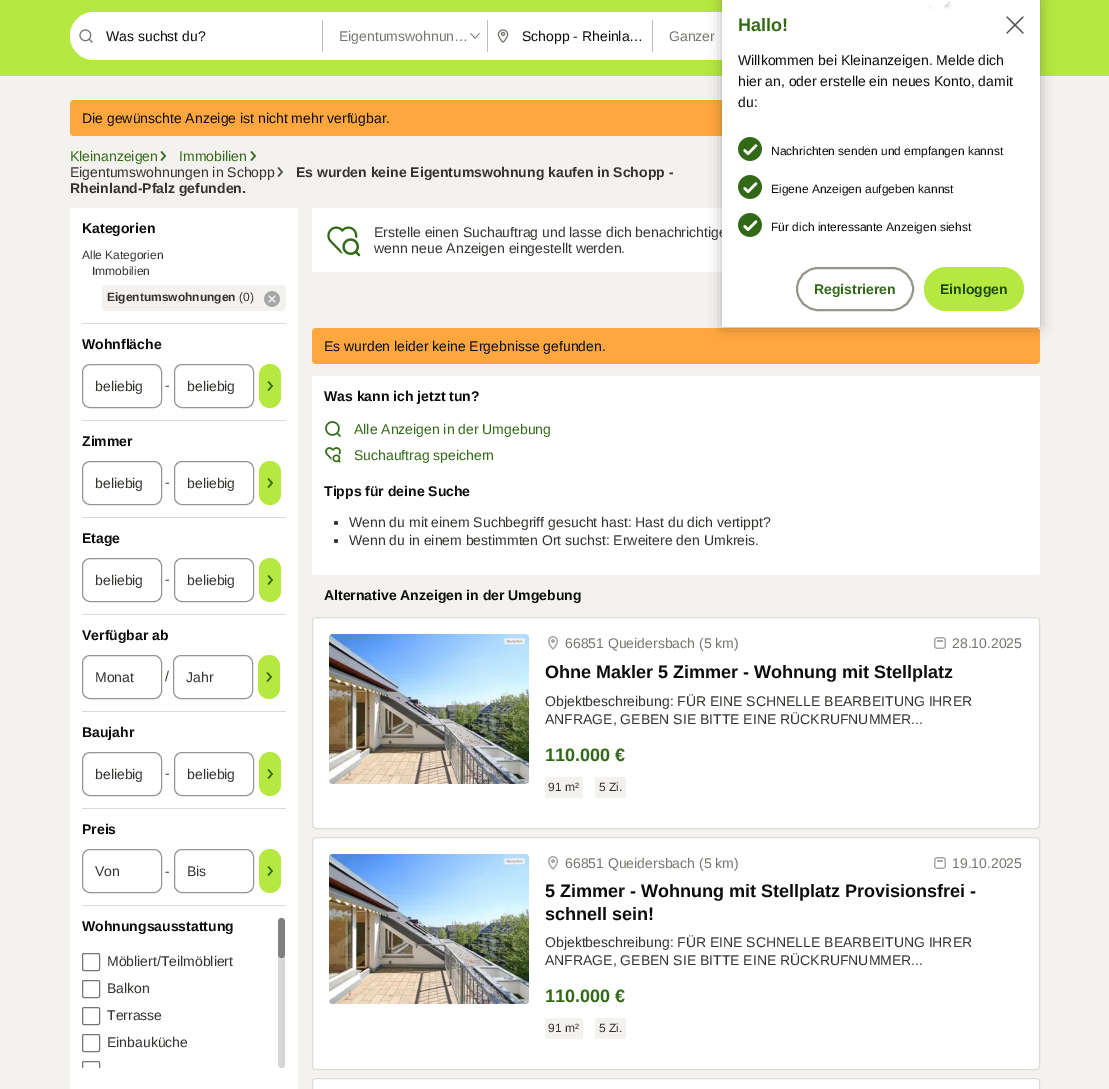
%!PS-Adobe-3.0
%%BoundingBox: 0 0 1109 1089
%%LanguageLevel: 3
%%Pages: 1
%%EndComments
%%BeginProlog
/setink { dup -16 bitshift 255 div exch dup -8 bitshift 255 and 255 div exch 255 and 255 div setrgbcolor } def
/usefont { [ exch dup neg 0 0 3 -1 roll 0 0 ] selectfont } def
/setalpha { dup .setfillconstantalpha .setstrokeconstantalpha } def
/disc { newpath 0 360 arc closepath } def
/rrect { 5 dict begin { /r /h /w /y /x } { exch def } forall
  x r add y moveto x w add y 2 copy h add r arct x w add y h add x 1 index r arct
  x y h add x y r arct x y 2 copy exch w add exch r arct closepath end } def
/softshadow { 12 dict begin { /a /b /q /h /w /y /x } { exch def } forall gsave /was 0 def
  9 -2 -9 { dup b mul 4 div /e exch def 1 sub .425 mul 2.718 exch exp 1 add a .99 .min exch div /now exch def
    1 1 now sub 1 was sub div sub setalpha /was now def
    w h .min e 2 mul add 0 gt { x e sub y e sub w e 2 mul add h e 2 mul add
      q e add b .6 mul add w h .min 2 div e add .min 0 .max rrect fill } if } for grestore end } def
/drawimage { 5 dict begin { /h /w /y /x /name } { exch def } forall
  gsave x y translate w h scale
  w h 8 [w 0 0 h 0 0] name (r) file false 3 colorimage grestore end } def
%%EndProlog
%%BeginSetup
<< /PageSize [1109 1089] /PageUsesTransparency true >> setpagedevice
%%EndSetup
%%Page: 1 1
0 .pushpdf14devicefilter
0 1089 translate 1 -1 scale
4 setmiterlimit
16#B5E941 setink
0 0 1109 1089 rectfill
16#FFFFFF setink
70 12 803 48 24 rrect fill
(img1.raw) 79 29 14 14 drawimage
/LiberationSans-Regular 14 usefont
16#0C0C0B setink
106 41 moveto (Was suchst du?) show
16#BEBCB7 setink
322 20 1 32 rectfill
(img2.raw) 470 33 10 6 drawimage
16#77756F setink
339 41 moveto (Eigentumswohnun…) show
16#BEBCB7 setink
487 20 1 32 rectfill
(img3.raw) 497 29 12 14 drawimage
16#0C0C0B setink
522 41 moveto (Schopp - Rheinla…) show
16#BEBCB7 setink
652 20 1 32 rectfill
16#77756F setink
669 41 moveto (Ganzer) show
16#F4F2EF setink
0 76 1109 1013 rectfill
16#FFA73F setink
70 100 970 36 4 rrect fill
16#FFFFFF setink
312 208 728 64 2 rrect fill
16#FFA73F setink
312 328 728 36 4 rrect fill
16#0C0C0B setink
722 0 318 327 0 7 0.3 softshadow
16#33322E setink
374 237 moveto (Erstelle einen Suchauftrag und lasse dich benachrichtige) show
16#FFFFFF setink
722 0 318 327 rectfill
16#0C0C0B setink
931 -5 18 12 0 1.5 0.15 softshadow
16#FFFFFF setink
925 0 moveto 937.5 -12.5 lineto 950 0 lineto 937.5 13 lineto closepath fill
/LiberationSans-Bold 18 usefont
16#326916 setink
738 31 moveto (Hallo!) show
(img4.raw) 1006 16 18 18 drawimage
/LiberationSans-Regular 14 usefont
16#0C0C0B setink
[
    [(Willkommen bei Kleinanzeigen. Melde dich) 738 65]
    [(hier an, oder erstelle ein neues Konto, damit) 738 86]
    [(du:) 738 107]
] { aload pop moveto show } forall
(img5.raw) 738 137 24 24 drawimage
/LiberationSans-Regular 12 usefont
771 155 moveto (Nachrichten senden und empfangen kannst) show
(img5.raw) 738 175 24 24 drawimage
771 193 moveto (Eigene Anzeigen aufgeben kannst) show
(img5.raw) 738 213 24 24 drawimage
771 231 moveto (Für dich interessante Anzeigen siehst) show
16#95958E setink
2 setlinewidth
797 268 116 42 21 rrect stroke
/LiberationSans-Bold 14 usefont
16#326916 setink
814 294 moveto (Registrieren) show
16#B5E941 setink
924 267 100 44 22 rrect fill
16#1D4B00 setink
940 294 moveto (Einloggen) show
/LiberationSans-Regular 14 usefont
16#0C0C0B setink
82 123 moveto (Die gewünschte Anzeige ist nicht mehr verfügbar.) show
16#326916 setink
1.5 setlinewidth
1 setlinecap
161.5 152 moveto 165 156 lineto 161.5 160 lineto stroke
70 161 moveto (Kleinanzeigen) show
251.5 152 moveto 255 156 lineto 251.5 160 lineto stroke
179 161 moveto (Immobilien) show
16#4D4D4D setink
278.5 168 moveto 282 172 lineto 278.5 176 lineto stroke
16#33322E setink
70 177 moveto (Eigentumswohnungen in Schopp) show
/LiberationSans-Bold 14 usefont
296 177 moveto (Es wurden keine Eigentumswohnung kaufen in Schopp -) show
70 193 moveto (Rheinland-Pfalz gefunden.) show
16#FFFFFF setink
70 208 228 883 2 rrect fill
16#0C0C0B setink
82 233 moveto (Kategorien) show
/LiberationSans-Regular 12 usefont
16#33322E setink
82 259 moveto (Alle Kategorien) show
92 275 moveto (Immobilien) show
16#F4F2EF setink
102 285 184 26 4 rrect fill
/LiberationSans-Bold 12 usefont
16#33322E setink
107 301 moveto (Eigentumswohnungen) show
/LiberationSans-Regular 12 usefont
239 301 moveto (\(0\)) show
(img6.raw) 264 291 16 16 drawimage
16#DDDBD5 setink
82 323 204 1 rectfill
/LiberationSans-Bold 14 usefont
16#0C0C0B setink
82 349 moveto (Wohnfläche) show
16#95958E setink
1 setlinewidth
0 setlinecap
82.5 364.5 79 43 7.5 rrect stroke
/LiberationSans-Regular 14 usefont
16#33322E setink
95 391 moveto (beliebig) show
165 390 moveto (-) show
16#95958E setink
174.5 364.5 79 43 7.5 rrect stroke
16#33322E setink
187 391 moveto (beliebig) show
16#B5E941 setink
259 364 22 44 11 rrect fill
16#326916 setink
1.5 setlinewidth
1 setlinecap
268.5 382 moveto 272 386 lineto 268.5 390 lineto stroke
16#DDDBD5 setink
82 420 204 1 rectfill
/LiberationSans-Bold 14 usefont
16#0C0C0B setink
82 446 moveto (Zimmer) show
16#95958E setink
1 setlinewidth
0 setlinecap
82.5 461.5 79 43 7.5 rrect stroke
/LiberationSans-Regular 14 usefont
16#33322E setink
95 488 moveto (beliebig) show
165 487 moveto (-) show
16#95958E setink
174.5 461.5 79 43 7.5 rrect stroke
16#33322E setink
187 488 moveto (beliebig) show
16#B5E941 setink
259 461 22 44 11 rrect fill
16#326916 setink
1.5 setlinewidth
1 setlinecap
268.5 479 moveto 272 483 lineto 268.5 487 lineto stroke
16#DDDBD5 setink
82 517 204 1 rectfill
/LiberationSans-Bold 14 usefont
16#0C0C0B setink
82 543 moveto (Etage) show
16#95958E setink
1 setlinewidth
0 setlinecap
82.5 558.5 79 43 7.5 rrect stroke
/LiberationSans-Regular 14 usefont
16#33322E setink
95 585 moveto (beliebig) show
165 584 moveto (-) show
16#95958E setink
174.5 558.5 79 43 7.5 rrect stroke
16#33322E setink
187 585 moveto (beliebig) show
16#B5E941 setink
259 558 22 44 11 rrect fill
16#326916 setink
1.5 setlinewidth
1 setlinecap
268.5 576 moveto 272 580 lineto 268.5 584 lineto stroke
16#DDDBD5 setink
82 614 204 1 rectfill
/LiberationSans-Bold 14 usefont
16#0C0C0B setink
82 640 moveto (Verfügbar ab) show
16#95958E setink
1 setlinewidth
0 setlinecap
82.5 655.5 79 43 7.5 rrect stroke
/LiberationSans-Regular 14 usefont
16#33322E setink
95 682 moveto (Monat) show
165 681 moveto (/) show
16#95958E setink
173.5 655.5 79 43 7.5 rrect stroke
16#33322E setink
186 682 moveto (Jahr) show
16#B5E941 setink
258 655 22 44 11 rrect fill
16#326916 setink
1.5 setlinewidth
1 setlinecap
267.5 673 moveto 271 677 lineto 267.5 681 lineto stroke
16#DDDBD5 setink
82 711 204 1 rectfill
/LiberationSans-Bold 14 usefont
16#0C0C0B setink
82 737 moveto (Baujahr) show
16#95958E setink
1 setlinewidth
0 setlinecap
82.5 752.5 79 43 7.5 rrect stroke
/LiberationSans-Regular 14 usefont
16#33322E setink
95 779 moveto (beliebig) show
165 778 moveto (-) show
16#95958E setink
174.5 752.5 79 43 7.5 rrect stroke
16#33322E setink
187 779 moveto (beliebig) show
16#B5E941 setink
259 752 22 44 11 rrect fill
16#326916 setink
1.5 setlinewidth
1 setlinecap
268.5 770 moveto 272 774 lineto 268.5 778 lineto stroke
16#DDDBD5 setink
82 808 204 1 rectfill
/LiberationSans-Bold 14 usefont
16#0C0C0B setink
82 834 moveto (Preis) show
16#95958E setink
1 setlinewidth
0 setlinecap
82.5 849.5 79 43 7.5 rrect stroke
/LiberationSans-Regular 14 usefont
16#33322E setink
95 876 moveto (Von) show
165 876 moveto (-) show
16#95958E setink
174.5 849.5 79 43 7.5 rrect stroke
16#33322E setink
187 876 moveto (Bis) show
16#B5E941 setink
259 849 22 44 11 rrect fill
16#326916 setink
1.5 setlinewidth
1 setlinecap
268.5 867 moveto 272 871 lineto 268.5 875 lineto stroke
16#DDDBD5 setink
82 905 204 1 rectfill
16#D6D6D6 setink
278 918 7 150 3.5 rrect fill
/LiberationSans-Bold 14 usefont
16#0C0C0B setink
82 931 moveto (Wohnungsausstattung) show
16#767676 setink
1 setlinewidth
0 setlinecap
82.5 953.5 17 17 1.5 rrect stroke
/LiberationSans-Regular 14 usefont
16#33322E setink
107 966 moveto (Möbliert/Teilmöbliert) show
16#767676 setink
82.5 980.5 17 17 1.5 rrect stroke
16#33322E setink
107 993 moveto (Balkon) show
16#767676 setink
82.5 1007.5 17 17 1.5 rrect stroke
16#33322E setink
107 1020 moveto (Terrasse) show
16#767676 setink
82.5 1034.5 17 17 1.5 rrect stroke
16#33322E setink
107 1047 moveto (Einbauküche) show
gsave
82 918 204 150 rectclip
16#767676 setink
82.5 1061.5 17 17 1.5 rrect stroke
grestore
0.4 setalpha
16#000000 setink
278 918 7 40 3.5 rrect fill
1 setalpha
(img7.raw) 327 226 34 31 drawimage
16#33322E setink
374 253 moveto (wenn neue Anzeigen eingestellt werden.) show
16#0C0C0B setink
324 351 moveto (Es wurden leider keine Ergebnisse gefunden.) show
16#FFFFFF setink
312 376 728 199 2 rrect fill
/LiberationSans-Bold 14 usefont
16#0C0C0B setink
324 401 moveto (Was kann ich jetzt tun?) show
(img8.raw) 325 421 16 16 drawimage
/LiberationSans-Regular 14 usefont
16#326916 setink
354 434 moveto (Alle Anzeigen in der Umgebung) show
(img9.raw) 325 447 16 16 drawimage
354 460 moveto (Suchauftrag speichern) show
/LiberationSans-Bold 14 usefont
16#0C0C0B setink
324 496 moveto (Tipps für deine Suche) show
16#33322E setink
336 523 2 disc fill
/LiberationSans-Regular 14 usefont
349 527 moveto (Wenn du mit einem Suchbegriff gesucht hast: Hast du dich vertippt?) show
336 541 2 disc fill
349 545 moveto (Wenn du in einem bestimmten Ort suchst: Erweitere den Umkreis.) show
/LiberationSans-Bold 14 usefont
16#0C0C0B setink
324 600 moveto (Alternative Anzeigen in der Umgebung) show
16#FFFFFF setink
312.5 617.5 727 211 3.5 rrect gsave fill grestore
16#DDDBD5 setink
stroke
(img10.raw) 329 634 200 150 drawimage
(img11.raw) 548 636 10 14 drawimage
/LiberationSans-Regular 14 usefont
16#77756F setink
565 648 moveto (66851 Queidersbach \(5 km\)) show
(img12.raw) 934 637 12 12 drawimage
952 648 moveto (28.10.2025) show
/LiberationSans-Bold 18 usefont
16#0C0C0B setink
545 678 moveto (Ohne Makler 5 Zimmer - Wohnung mit Stellplatz) show
/LiberationSans-Regular 14 usefont
16#33322E setink
545 706 moveto (Objektbeschreibung: FÜR EINE SCHNELLE BEARBEITUNG IHRER) show
545 724 moveto (ANFRAGE, GEBEN SIE BITTE EINE RÜCKRUFNUMMER...) show
/LiberationSans-Bold 18 usefont
16#326916 setink
545 761 moveto (110.000 €) show
16#F4F2EF setink
545 777 38 21 2 rrect fill
/LiberationSans-Regular 12 usefont
16#33322E setink
548 791 moveto (91 m²) show
16#F4F2EF setink
595 777 31 21 2 rrect fill
16#33322E setink
599 791 moveto (5 Zi.) show
16#FFFFFF setink
312.5 837.5 727 232 3.5 rrect gsave fill grestore
16#DDDBD5 setink
stroke
(img10.raw) 329 854 200 150 drawimage
(img11.raw) 548 856 10 14 drawimage
/LiberationSans-Regular 14 usefont
16#77756F setink
565 868 moveto (66851 Queidersbach \(5 km\)) show
(img12.raw) 934 857 12 12 drawimage
952 868 moveto (19.10.2025) show
/LiberationSans-Bold 18 usefont
16#0C0C0B setink
545 897 moveto (5 Zimmer - Wohnung mit Stellplatz Provisionsfrei -) show
545 920 moveto (schnell sein!) show
/LiberationSans-Regular 14 usefont
16#33322E setink
545 947 moveto (Objektbeschreibung: FÜR EINE SCHNELLE BEARBEITUNG IHRER) show
545 965 moveto (ANFRAGE, GEBEN SIE BITTE EINE RÜCKRUFNUMMER...) show
/LiberationSans-Bold 18 usefont
16#326916 setink
545 1002 moveto (110.000 €) show
16#F4F2EF setink
545 1018 38 21 2 rrect fill
/LiberationSans-Regular 12 usefont
16#33322E setink
548 1032 moveto (91 m²) show
16#F4F2EF setink
595 1018 31 21 2 rrect fill
16#33322E setink
599 1032 moveto (5 Zi.) show
16#FFFFFF setink
312.5 1078.5 727 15 3.5 rrect gsave fill grestore
16#DDDBD5 setink
stroke
.poppdf14devicefilter showpage
%%EOF
